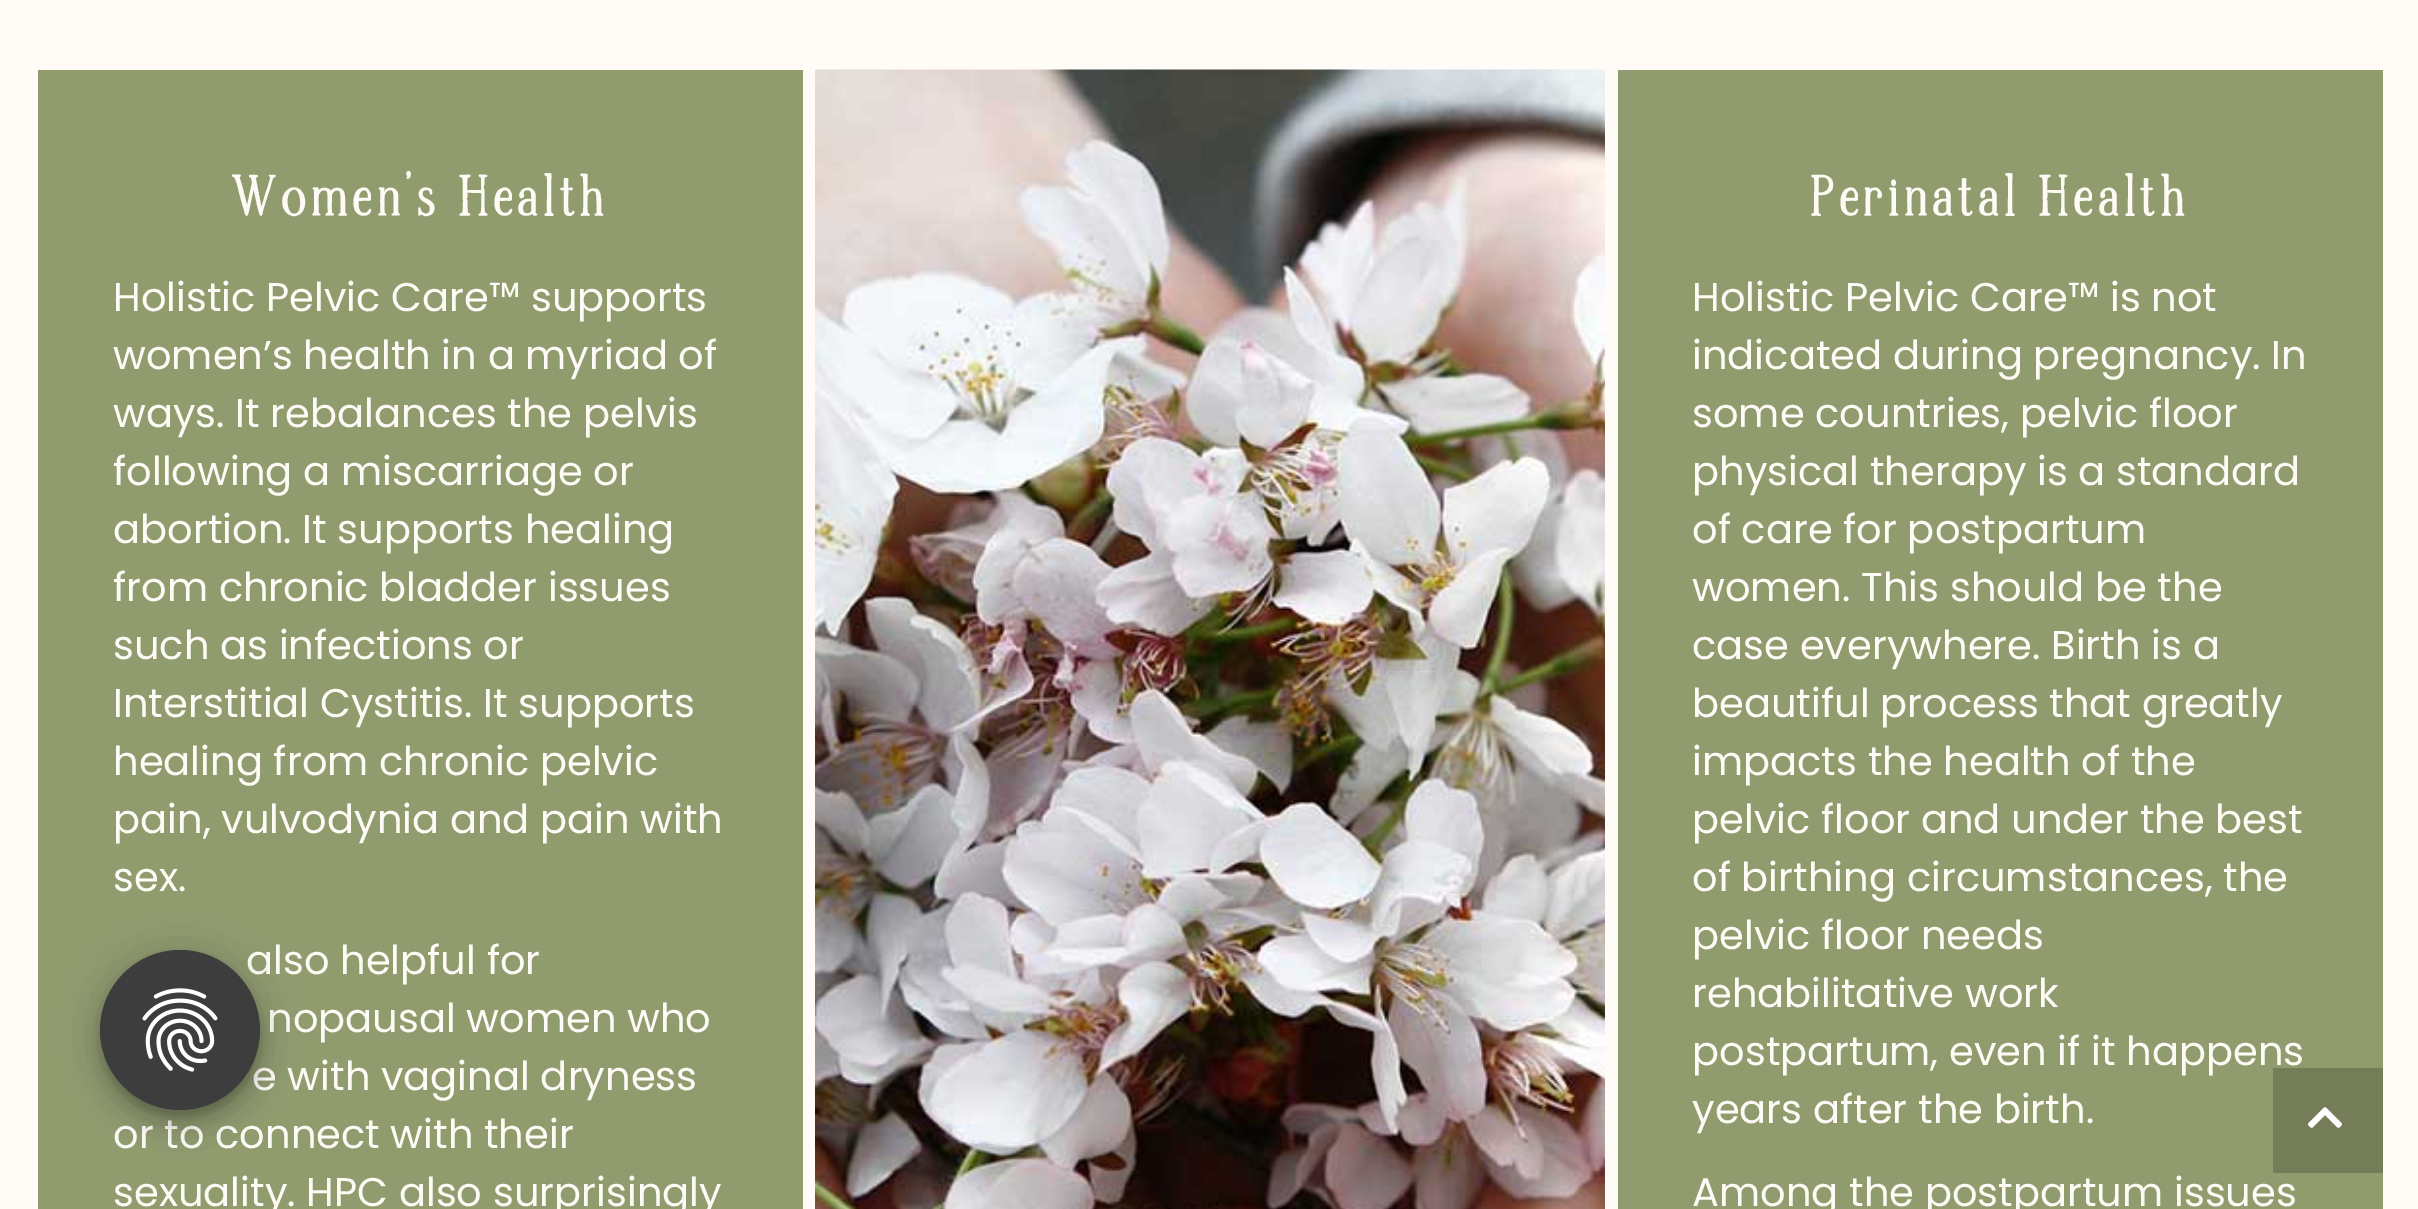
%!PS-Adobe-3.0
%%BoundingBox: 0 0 2418 1209
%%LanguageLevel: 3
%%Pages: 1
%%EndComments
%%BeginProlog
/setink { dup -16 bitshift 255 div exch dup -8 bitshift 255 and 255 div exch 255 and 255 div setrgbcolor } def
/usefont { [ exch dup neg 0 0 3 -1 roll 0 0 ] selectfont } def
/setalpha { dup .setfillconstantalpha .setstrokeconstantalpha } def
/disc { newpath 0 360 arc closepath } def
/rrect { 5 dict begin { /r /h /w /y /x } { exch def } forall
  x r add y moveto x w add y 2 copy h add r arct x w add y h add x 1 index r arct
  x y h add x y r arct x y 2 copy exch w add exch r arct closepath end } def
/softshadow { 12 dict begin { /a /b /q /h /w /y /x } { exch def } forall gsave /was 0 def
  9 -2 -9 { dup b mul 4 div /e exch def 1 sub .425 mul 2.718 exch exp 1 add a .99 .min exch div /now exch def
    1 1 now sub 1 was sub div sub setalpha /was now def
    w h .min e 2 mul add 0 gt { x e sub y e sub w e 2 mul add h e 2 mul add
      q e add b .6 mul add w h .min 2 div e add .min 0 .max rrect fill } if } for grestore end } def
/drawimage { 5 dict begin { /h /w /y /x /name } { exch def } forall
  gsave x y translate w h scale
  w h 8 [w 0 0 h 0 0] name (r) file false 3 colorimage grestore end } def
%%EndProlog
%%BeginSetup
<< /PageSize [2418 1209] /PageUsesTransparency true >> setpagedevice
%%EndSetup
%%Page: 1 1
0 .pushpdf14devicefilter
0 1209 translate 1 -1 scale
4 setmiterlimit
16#FFFBF7 setink
0 0 2418 1209 rectfill
16#919C6E setink
38 70 765 1139 rectfill
/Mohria-Bold 62.5 usefont
16#FEFBF6 setink
231 214 moveto 6.25 0 (Women's Health) ashow
/Poppins-Regular 40 usefont
[
    [(Holistic Pelvic Care™ supports) 113 311]
    [(women’s health in a myriad of) 113 369]
    [(ways. It rebalances the pelvis) 113 427]
    [(following a miscarriage or) 113 485]
    [(abortion. It supports healing) 113 543]
    [(from chronic bladder issues) 113 601]
    [(such as infections or) 113 659]
    [(Interstitial Cystitis. It supports) 113 717]
    [(healing from chronic pelvic) 113 775]
    [(pain, vulvodynia and pain with) 113 833]
    [(sex.) 113 891]
    [(also helpful for) 246 974]
    [(nopausal women who) 267 1032]
    [(e with vaginal dryness) 252 1090]
    [(or to connect with their) 113 1148]
    [(sexuality. HPC also surprisingly) 113 1206]
] { aload pop moveto show } forall
(img1.raw) 815 69 790 1140 drawimage
16#919C6E setink
1618 70 765 1139 rectfill
/Mohria-Bold 62.5 usefont
16#FEFBF6 setink
1810 214 moveto 6.25 0 (Perinatal Health) ashow
/Poppins-Regular 40 usefont
[
    [(Holistic Pelvic Care™ is not) 1692 311]
    [(indicated during pregnancy. In) 1692 369]
    [(some countries, pelvic floor) 1692 427]
    [(physical therapy is a standard) 1692 485]
    [(of care for postpartum) 1692 543]
    [(women. This should be the) 1692 601]
    [(case everywhere. Birth is a) 1692 659]
    [(beautiful process that greatly) 1692 717]
    [(impacts the health of the) 1692 775]
    [(pelvic floor and under the best) 1692 833]
    [(of birthing circumstances, the) 1692 891]
    [(pelvic floor needs) 1692 949]
    [(rehabilitative work) 1692 1007]
    [(postpartum, even if it happens) 1692 1065]
    [(years after the birth.) 1692 1123]
    [(Among the postpartum issues) 1692 1206]
] { aload pop moveto show } forall
16#000000 setink
100 953 160 160 80 22.5 0.12 softshadow
100 965 160 160 80 12.5 0.14 softshadow
103 960 155 155 77.5 6 0.2 softshadow
16#3D3D3D setink
180 1030 80 disc fill
(img2.raw) 142 988 76 84 drawimage
16#747D58 setink
2273 1068 110 105 rectfill
(img3.raw) 2308 1107 34 21 drawimage
.poppdf14devicefilter showpage
%%EOF
